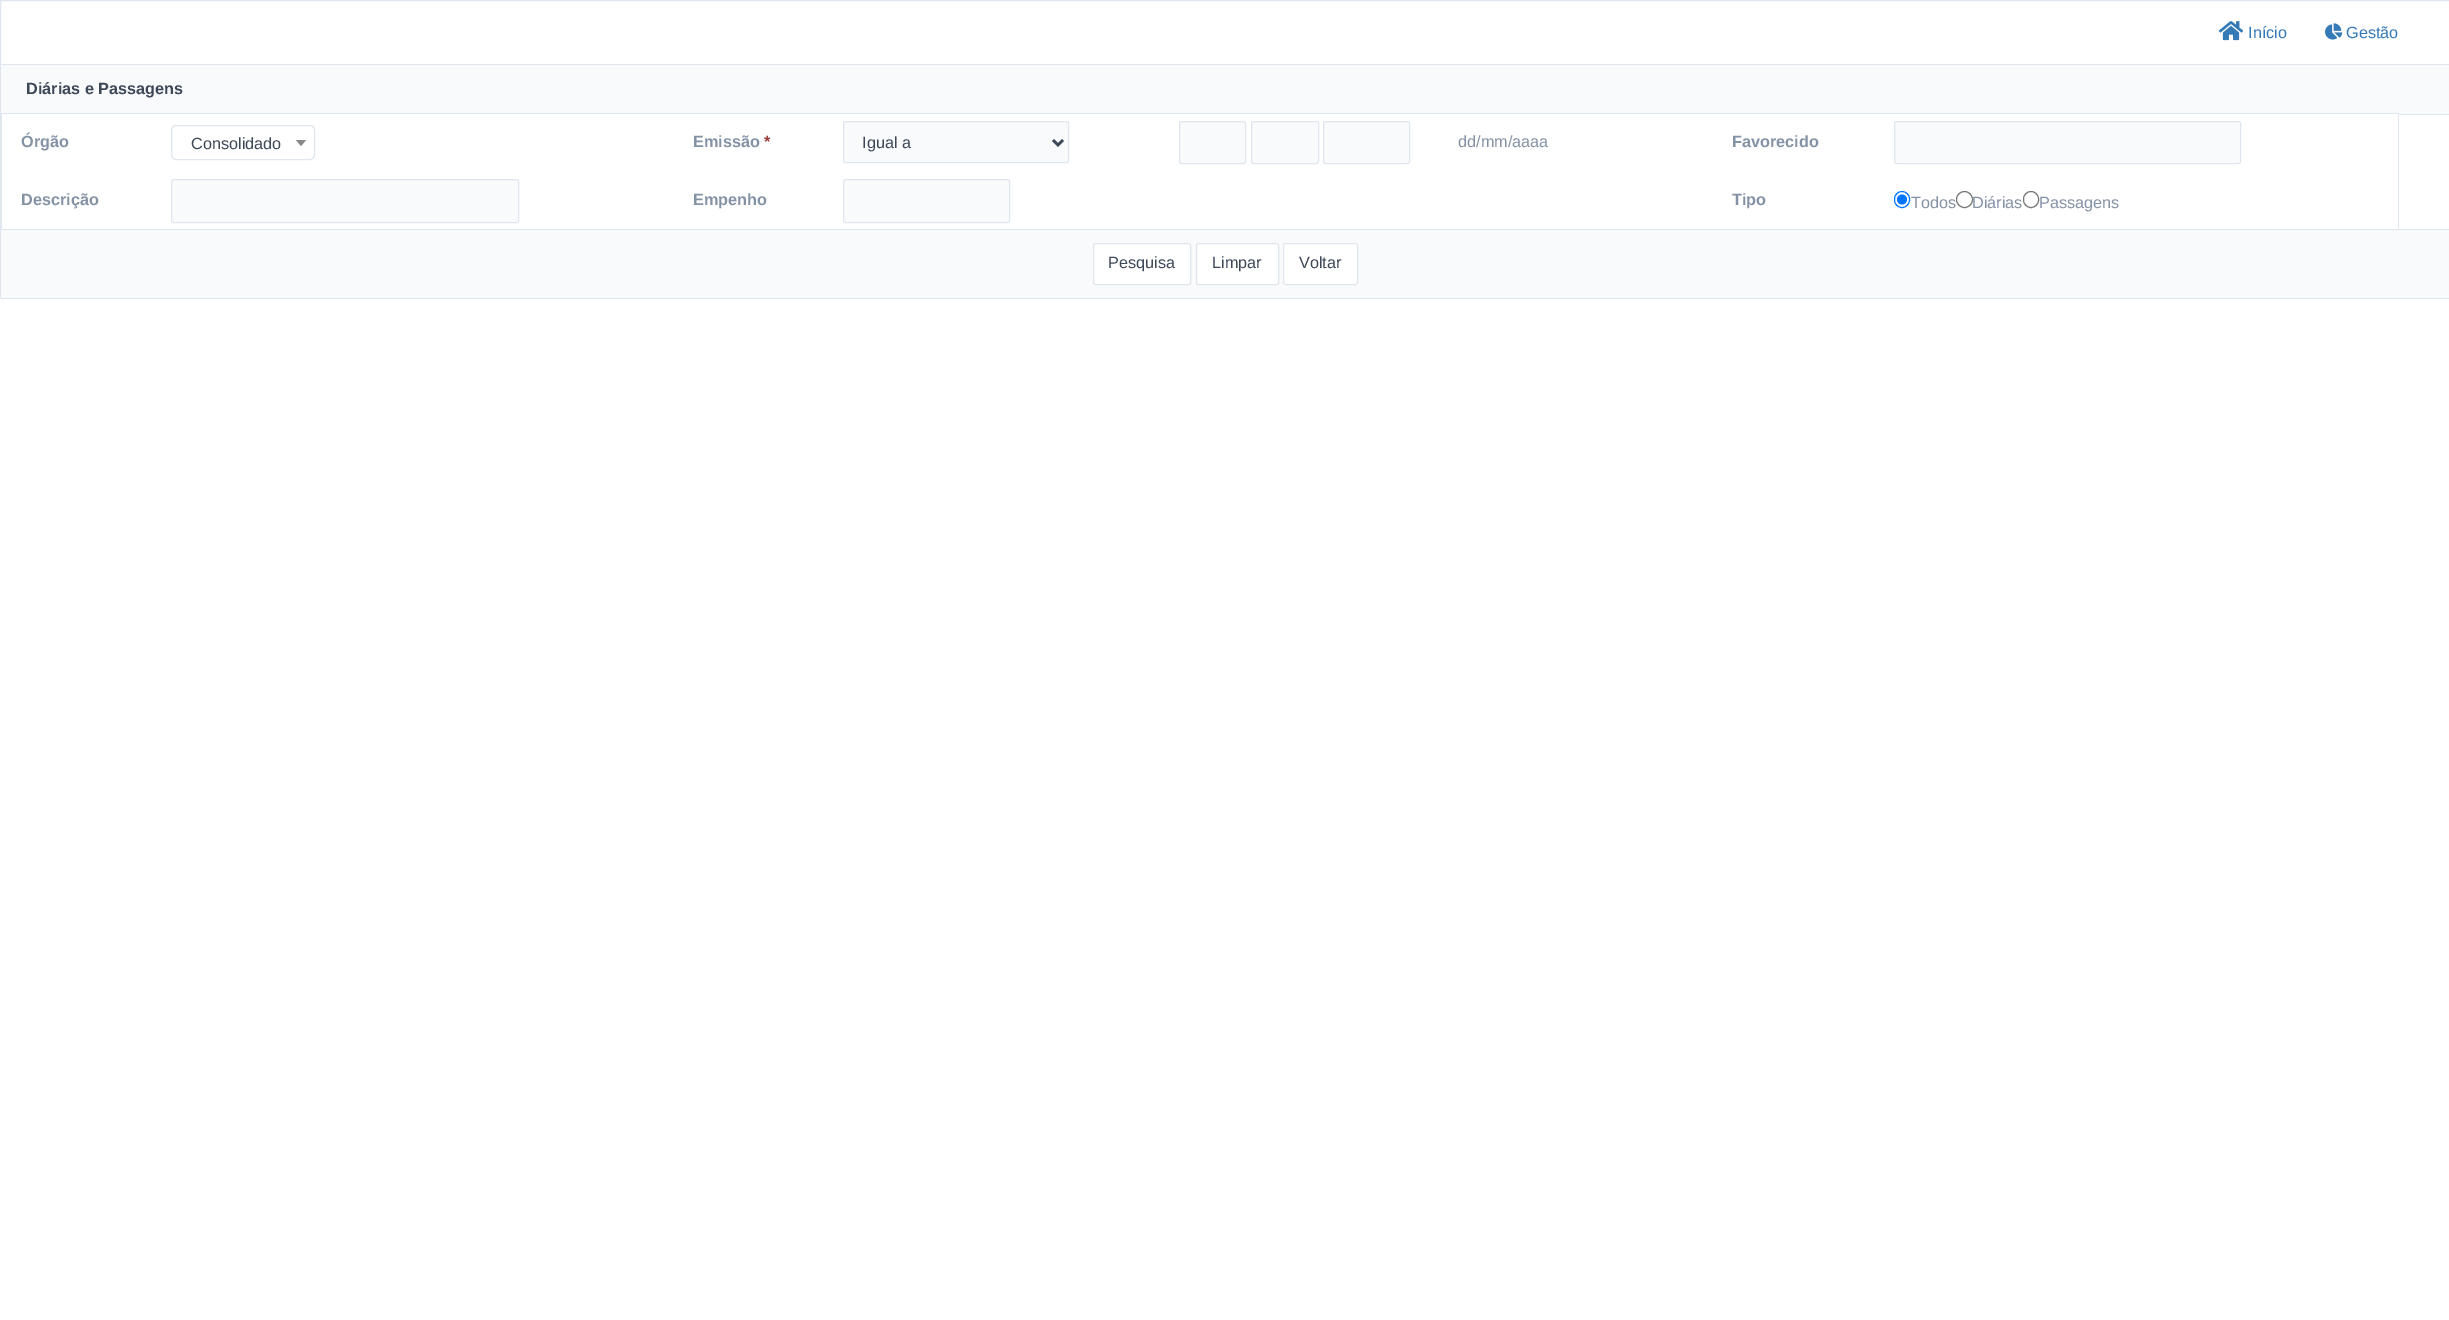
%!PS-Adobe-3.0
%%BoundingBox: 0 0 2449 1320
%%LanguageLevel: 3
%%Pages: 1
%%EndComments
%%BeginProlog
/setink { dup -16 bitshift 255 div exch dup -8 bitshift 255 and 255 div exch 255 and 255 div setrgbcolor } def
/usefont { [ exch dup neg 0 0 3 -1 roll 0 0 ] selectfont } def
/disc { newpath 0 360 arc closepath } def
/rrect { 5 dict begin { /r /h /w /y /x } { exch def } forall
  x r add y moveto x w add y 2 copy h add r arct x w add y h add x 1 index r arct
  x y h add x y r arct x y 2 copy exch w add exch r arct closepath end } def
/drawimage { 5 dict begin { /h /w /y /x /name } { exch def } forall
  gsave x y translate w h scale
  w h 8 [w 0 0 h 0 0] name (r) file false 3 colorimage grestore end } def
%%EndProlog
%%BeginSetup
<< /PageSize [2449 1320] >> setpagedevice
%%EndSetup
%%Page: 1 1
0 1320 translate 1 -1 scale
4 setmiterlimit
16#FFFFFF setink
0 0 2449 1320 rectfill
16#E0E6ED setink
0.5 0.5 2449 297 rectstroke
(img1.raw) 2218 21 26 20 drawimage
/LiberationSans-Regular 16.25 usefont
16#337AB7 setink
2248 38 moveto (Início) show
(img2.raw) 2325 23 18 17 drawimage
2346 38 moveto (Gestão) show
[
    [1 65 2448 49 16#F9FAFC]
    [1 64 2448 1 16#E0E6ED]
    [2399 114 50 1 16#E0E6ED]
] { aload pop setink rectfill } forall
/LiberationSans-Bold 16.25 usefont
16#3C4858 setink
26 94 moveto (Diárias e Passagens) show
[
    [1 113 2398 1 16#E0E6ED]
    [2398 113 1 118 16#E0E6ED]
    [1 113 1 118 16#E0E6ED]
] { aload pop setink rectfill } forall
16#8492A6 setink
21 147 moveto (Órgão) show
16#E0E6ED setink
171.5 125.5 143 34 4.5 rrect stroke
/LiberationSans-Regular 16.25 usefont
16#3C4858 setink
191 149 moveto (Consolidado) show
16#888888 setink
296 140 moveto 306 140 lineto 301 146 lineto closepath fill
/LiberationSans-Bold 16.25 usefont
16#8492A6 setink
693 147 moveto (Emissão) show
16#9F3A38 setink
764 147 moveto (*) show
16#F9FAFC setink
843.5 121.5 225 41 2 rrect gsave fill grestore
16#E0E6ED setink
stroke
16#3C4858 setink
2.5 setlinewidth
1053 140 moveto 1058 145 lineto 1063 140 lineto stroke
/LiberationSans-Regular 16.25 usefont
862 148 moveto (Igual a) show
16#F9FAFC setink
1179.5 121.5 66 42 2 rrect gsave fill grestore
16#E0E6ED setink
1 setlinewidth
stroke
16#F9FAFC setink
1251.5 121.5 67 42 2 rrect gsave fill grestore
16#E0E6ED setink
stroke
16#F9FAFC setink
1323.5 121.5 86 42 2 rrect gsave fill grestore
16#E0E6ED setink
stroke
16#8492A6 setink
1458 147 moveto (dd/mm/aaaa) show
/LiberationSans-Bold 16.25 usefont
1732 147 moveto (Favorecido) show
16#F9FAFC setink
1894.5 121.5 346 42 2 rrect gsave fill grestore
16#E0E6ED setink
stroke
16#8492A6 setink
21 205 moveto (Descrição) show
16#F9FAFC setink
171.5 179.5 347 43 2 rrect gsave fill grestore
16#E0E6ED setink
stroke
16#8492A6 setink
693 205 moveto (Empenho) show
16#F9FAFC setink
843.5 179.5 166 43 2 rrect gsave fill grestore
16#E0E6ED setink
stroke
16#8492A6 setink
1732 205 moveto (Tipo) show
16#0075FF setink
1894.5 191.5 15 16 7.5 rrect stroke
1902 199.5 5 disc fill
/LiberationSans-Regular 16.25 usefont
16#8492A6 setink
1911 208 moveto (Todos) show
16#767676 setink
1964.5 199.5 8 disc stroke
16#8492A6 setink
1972 208 moveto (Diárias) show
16#767676 setink
2023.5 191.5 15 16 7.5 rrect stroke
16#8492A6 setink
2039 208 moveto (Passagens) show
[
    [1 230 2448 68 16#F9FAFC]
    [1 229 2448 1 16#E0E6ED]
    [1 298 2448 1 16#E0E6ED]
] { aload pop setink rectfill } forall
16#FFFFFF setink
1093.5 243.5 97 41 2 rrect gsave fill grestore
16#E0E6ED setink
stroke
16#3C4858 setink
1108 268 moveto (Pesquisa) show
16#FFFFFF setink
1196.5 243.5 82 41 2 rrect gsave fill grestore
16#E0E6ED setink
stroke
16#3C4858 setink
1212 268 moveto (Limpar) show
16#FFFFFF setink
1283.5 243.5 74 41 2 rrect gsave fill grestore
16#E0E6ED setink
stroke
16#3C4858 setink
1299 268 moveto (Voltar) show
showpage
%%EOF
